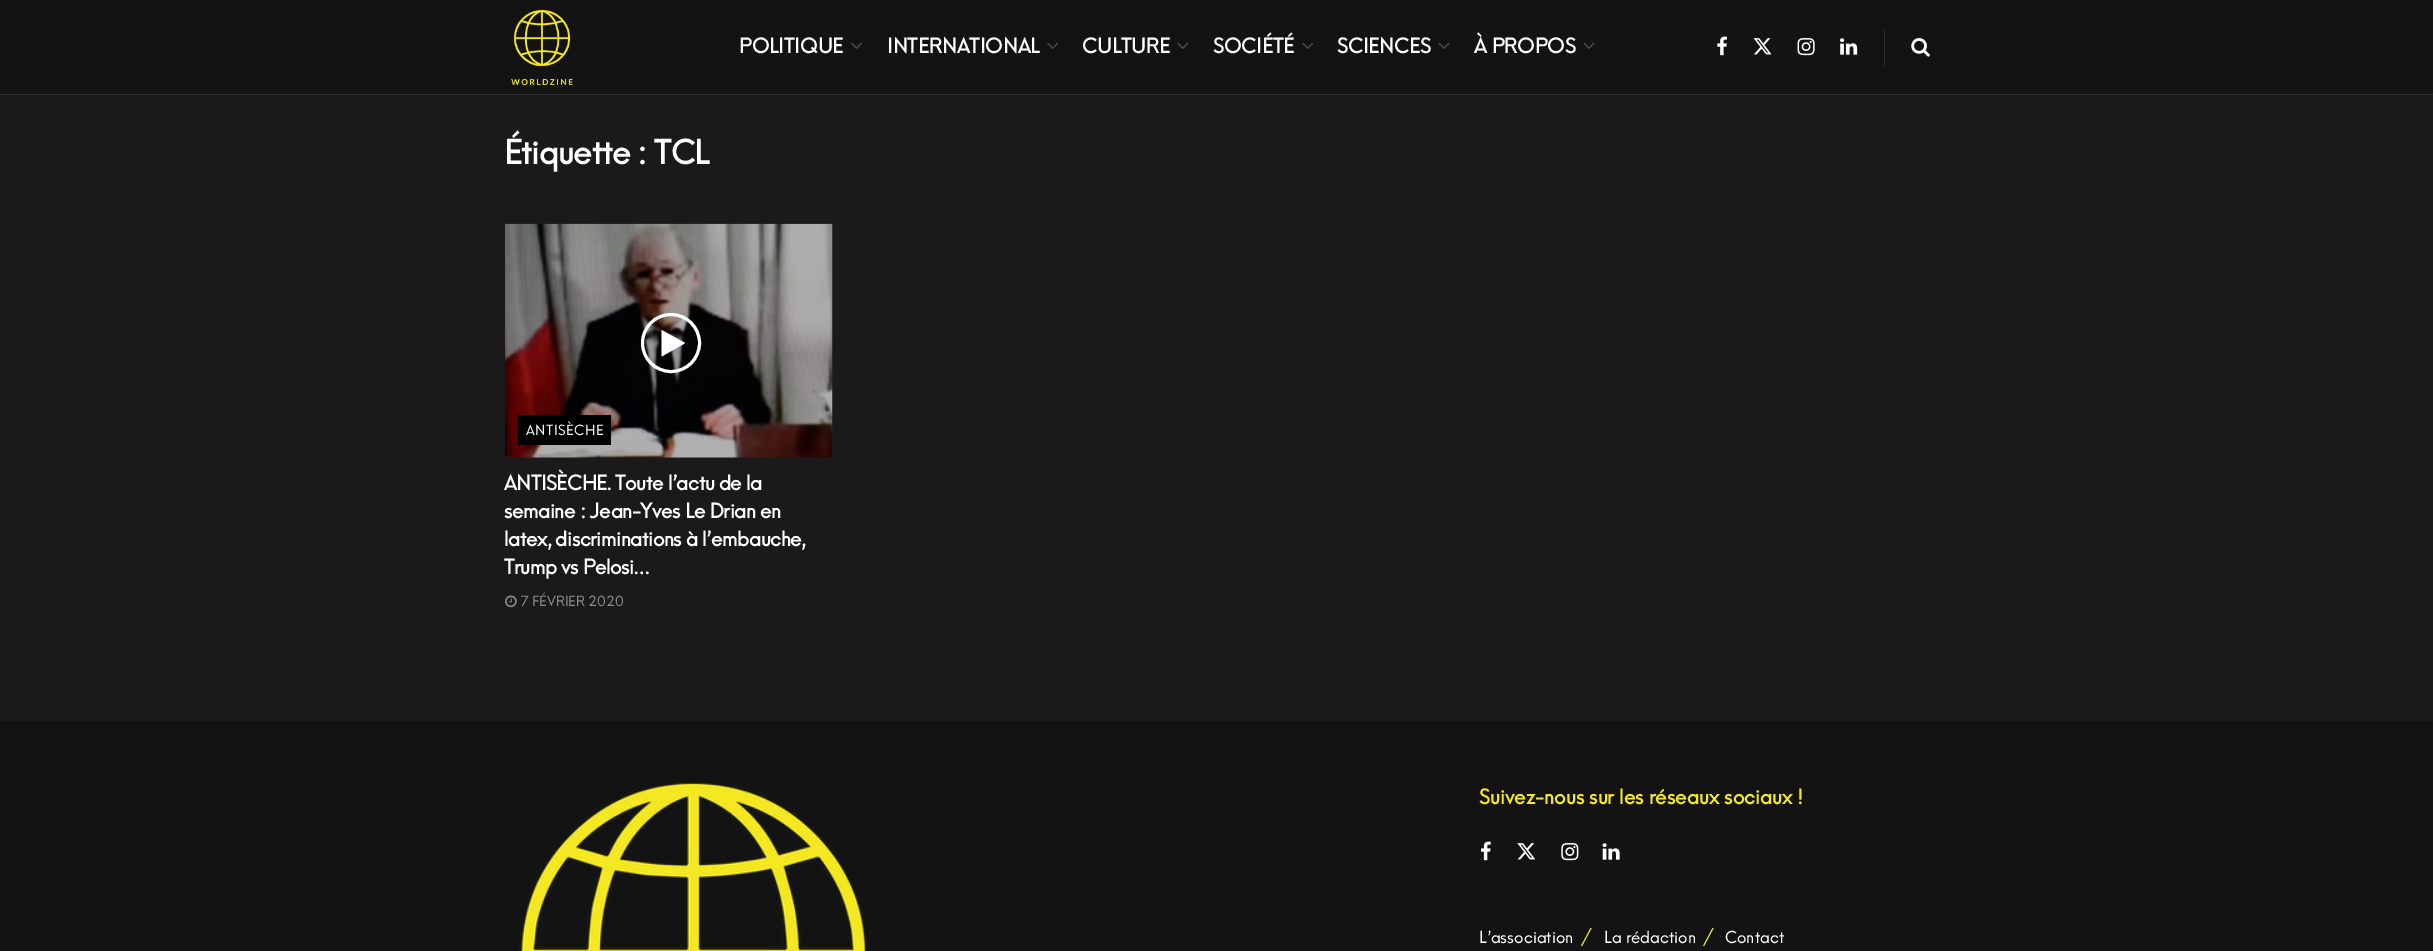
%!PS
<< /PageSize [2433 951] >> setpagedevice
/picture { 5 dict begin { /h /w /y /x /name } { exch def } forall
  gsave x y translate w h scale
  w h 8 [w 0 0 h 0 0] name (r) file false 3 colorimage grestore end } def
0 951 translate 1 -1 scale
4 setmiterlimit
0.102 setgray
0 0 2433 951 rectfill
0.075 setgray
0 0 2433 94 rectfill
0.188 setgray
0 94 2433 1 rectfill
(img1.rgb) 511 10 62 75 picture
/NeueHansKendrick-Bold [20 0 0 -20 0 0] selectfont
1 setgray
739 53 moveto (POLITIQUE) show
(img2.rgb) 851 42 11 7 picture
887 53 moveto (INTERNATIONAL) show
(img3.rgb) 1047 42 12 7 picture
1082 53 moveto (CULTURE) show
(img3.rgb) 1177 42 12 7 picture
1213 53 moveto (SOCIÉTÉ) show
(img3.rgb) 1302 42 12 7 picture
1337 53 moveto (SCIENCES) show
(img4.rgb) 1438 42 12 7 picture
1474 53 moveto (À PROPOS) show
(img4.rgb) 1583 42 12 7 picture
(img5.rgb) 1717 36 10 20 picture
(img6.rgb) 1753 38 19 17 picture
(img7.rgb) 1797 38 18 18 picture
(img8.rgb) 1840 38 18 17 picture
0.188 setgray
1884 29 1 37 rectfill
(img9.rgb) 1911 38 19 19 picture
/NeueHansKendrick-Bold [32.5 0 0 -32.5 0 0] selectfont
1 setgray
504 164 moveto -0.6 0 (Étiquette : TCL) ashow
(img10.rgb) 505 223 328 235 picture
3 setlinewidth
newpath 671 343 28.5 0 360 arc closepath stroke
newpath 684.5 343.5 moveto 666 354 lineto 665.5 354 662 357 661.5 356 curveto 661.5 330.5 lineto 661.5 330 lineto 680.5 340.5 lineto 685 343 lineto closepath fill
0 setgray
518 415 93 30 rectfill
/NeueHansKendrick-Regular [13.75 0 0 -13.75 0 0] selectfont
1 setgray
526 435 moveto 0.5 0 (ANTISÈCHE) ashow
/NeueHansKendrick-Bold [20 0 0 -20 0 0] selectfont
504 490 moveto -0.4 0 (ANTISÈCHE. Toute l’actu de la) ashow
504 518 moveto -0.4 0 (semaine : Jean-Yves Le Drian en) ashow
504 546 moveto -0.4 0 (latex, discriminations à l’embauche,) ashow
504 574 moveto -0.4 0 (Trump vs Pelosi…) ashow
(img11.rgb) 505 595 12 13 picture
/NeueHansKendrick-Regular [13.75 0 0 -13.75 0 0] selectfont
0.545 setgray
520 606 moveto (7 FÉVRIER 2020) show
0.075 setgray
0 721 2433 230 rectfill
(img12.rgb) 519 783 347 168 picture
/NeueHansKendrick-Bold [20 0 0 -20 0 0] selectfont
0.957 0.91 0.137 setrgbcolor
1479 804 moveto (Suivez-nous sur les réseaux sociaux !) show
(img13.rgb) 1481 841 10 20 picture
(img14.rgb) 1517 843 19 17 picture
(img15.rgb) 1561 843 18 18 picture
(img16.rgb) 1602 843 18 17 picture
/NeueHansKendrick-Regular [16.25 0 0 -16.25 0 0] selectfont
1 setgray
1479 943 moveto (L’association) show
/NeueHansKendrick-Regular [18 0 0 -18 0 0] selectfont
0.933 0.933 0.133 setrgbcolor
1581 943 moveto (/) show
/NeueHansKendrick-Regular [16.25 0 0 -16.25 0 0] selectfont
1 setgray
1604 943 moveto (La rédaction) show
/NeueHansKendrick-Regular [18 0 0 -18 0 0] selectfont
0.933 0.933 0.133 setrgbcolor
1703 943 moveto (/) show
/NeueHansKendrick-Regular [16.25 0 0 -16.25 0 0] selectfont
1 setgray
1725 943 moveto (Contact) show
showpage
